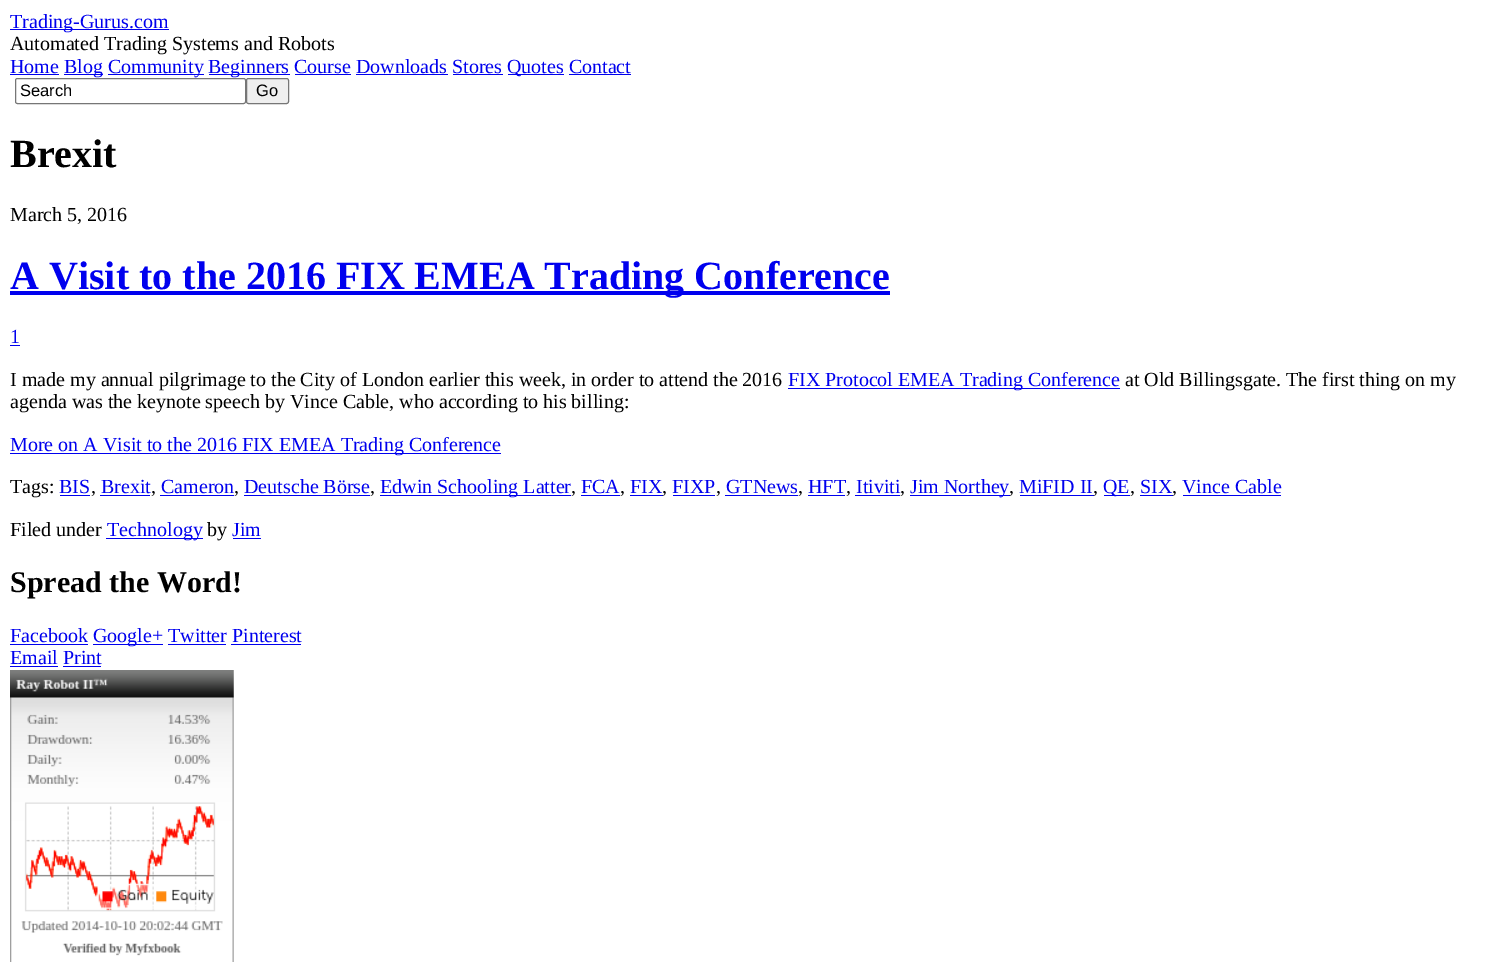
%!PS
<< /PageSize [1501 962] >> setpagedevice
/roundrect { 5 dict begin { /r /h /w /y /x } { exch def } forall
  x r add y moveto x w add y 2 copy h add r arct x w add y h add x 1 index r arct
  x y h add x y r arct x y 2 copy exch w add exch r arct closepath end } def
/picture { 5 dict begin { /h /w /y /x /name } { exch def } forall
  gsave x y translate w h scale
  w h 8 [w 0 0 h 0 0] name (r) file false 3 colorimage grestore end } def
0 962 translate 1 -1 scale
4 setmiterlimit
1 setgray
0 0 1501 962 rectfill
0 0 0.933 setrgbcolor
10 29 159 1 rectfill
/LiberationSerif-Regular [20 0 0 -20 0 0] selectfont
10 28 moveto (Trading-Gurus.com) show
0 setgray
10 50 moveto (Automated Trading Systems and Robots) show
0 0 0.933 setrgbcolor
10 73 moveto (Home) show
10 74 49 1 rectfill
64 74 39 1 rectfill
64 73 moveto (Blog) show
108 74 96 1 rectfill
108 73 moveto (Community) show
209 74 81 1 rectfill
208 73 moveto (Beginners Course Downloads Stores) show
508 74 56 1 rectfill
507 73 moveto (Quotes Contact) show
295 74 56 1 rectfill
356 74 92 1 rectfill
453 74 50 1 rectfill
569 74 62 1 rectfill
0.463 setgray
15.5 78.5 230 25 2 roundrect stroke
/LiberationSans-Regular [16.5 0 0 -16.5 0 0] selectfont
0 setgray
20 96 moveto (Search) show
0.937 setgray
246.5 78.5 42 25 2 roundrect gsave fill grestore
0.463 setgray
stroke
0 setgray
256 96 moveto (Go) show
/LiberationSerif-Bold [40 0 0 -40 0 0] selectfont
10 167 moveto (Brexit) show
/LiberationSerif-Regular [20 0 0 -20 0 0] selectfont
10 221 moveto (March 5, 2016) show
0 0 0.933 setrgbcolor
10 291 880 4 rectfill
/LiberationSerif-Bold [40 0 0 -40 0 0] selectfont
10 289 moveto (A Visit to the 2016 FIX EMEA Trading Conference) show
/LiberationSerif-Regular [20 0 0 -20 0 0] selectfont
10 343 moveto (1) show
10 345 10 1 rectfill
0 setgray
10 386 moveto (I made my annual pilgrimage to the City of London earlier this week, in order to attend the 2016) show
0 0 0.933 setrgbcolor
788 388 332 1 rectfill
788 386 moveto (FIX Protocol EMEA Trading Conference) show
0 setgray
1125 386 moveto (at Old Billingsgate. The first thing on my) show
10 408 moveto (agenda was the keynote speech by Vince Cable, who according to his billing:) show
0 0 0.933 setrgbcolor
10 453 491 1 rectfill
10 451 moveto (More on A Visit to the 2016 FIX EMEA Trading Conference) show
0 setgray
10 493 moveto (Tags:) show
0 0 0.933 setrgbcolor
59 493 moveto (BIS) show
60 495 30 1 rectfill
0 setgray
91 493 moveto (,) show
0 0 0.933 setrgbcolor
101 493 moveto (Brexit) show
100 495 50 1 rectfill
0 setgray
151 493 moveto (,) show
0 0 0.933 setrgbcolor
161 493 moveto (Cameron) show
160 495 74 1 rectfill
0 setgray
234 493 moveto (,) show
0 0 0.933 setrgbcolor
244 493 moveto (Deutsche Börse) show
244 495 126 1 rectfill
0 setgray
370 493 moveto (,) show
0 0 0.933 setrgbcolor
380 495 191 1 rectfill
380 493 moveto (Edwin Schooling Latter) show
0 setgray
571 493 moveto (,) show
0 0 0.933 setrgbcolor
581 493 moveto (FCA) show
581 495 39 1 rectfill
0 setgray
620 493 moveto (,) show
0 0 0.933 setrgbcolor
630 493 moveto (FIX) show
630 495 33 1 rectfill
0 setgray
662 493 moveto (,) show
0 0 0.933 setrgbcolor
672 493 moveto (FIXP) show
673 495 42 1 rectfill
0 setgray
716 493 moveto (,) show
0 0 0.933 setrgbcolor
726 493 moveto (GTNews) show
725 495 73 1 rectfill
0 setgray
798 493 moveto (,) show
0 0 0.933 setrgbcolor
808 493 moveto (HFT) show
808 495 37 1 rectfill
0 setgray
846 493 moveto (,) show
0 0 0.933 setrgbcolor
856 493 moveto (Itiviti) show
855 495 45 1 rectfill
0 setgray
900 493 moveto (,) show
0 0 0.933 setrgbcolor
910 495 100 1 rectfill
910 493 moveto (Jim Northey) show
0 setgray
1009 493 moveto (,) show
0 0 0.933 setrgbcolor
1019 493 moveto (MiFID II) show
1020 495 74 1 rectfill
0 setgray
1093 493 moveto (,) show
0 0 0.933 setrgbcolor
1104 495 26 1 rectfill
1103 493 moveto (QE) show
0 setgray
1130 493 moveto (,) show
0 0 0.933 setrgbcolor
1140 493 moveto (SIX) show
1140 495 33 1 rectfill
0 setgray
1172 493 moveto (,) show
0 0 0.933 setrgbcolor
1182 493 moveto (Vince Cable) show
1183 495 98 1 rectfill
0 setgray
10 536 moveto (Filed under) show
0 0 0.933 setrgbcolor
106 538 97 1 rectfill
107 536 moveto (Technology) show
0 setgray
207 536 moveto (by) show
0 0 0.933 setrgbcolor
232 536 moveto (Jim) show
233 538 28 1 rectfill
/LiberationSerif-Bold [30 0 0 -30 0 0] selectfont
0 setgray
10 592 moveto (Spread the Word!) show
/LiberationSerif-Regular [20 0 0 -20 0 0] selectfont
0 0 0.933 setrgbcolor
10 642 moveto (Facebook) show
10 644 78 1 rectfill
93 644 70 1 rectfill
93 642 moveto (Google+ Twitter Pinterest) show
168 644 58 1 rectfill
231 644 70 1 rectfill
10 664 moveto (Email Print) show
10 666 48 1 rectfill
63 666 38 1 rectfill
(img1.rgb) 10 670 224 292 picture
showpage
